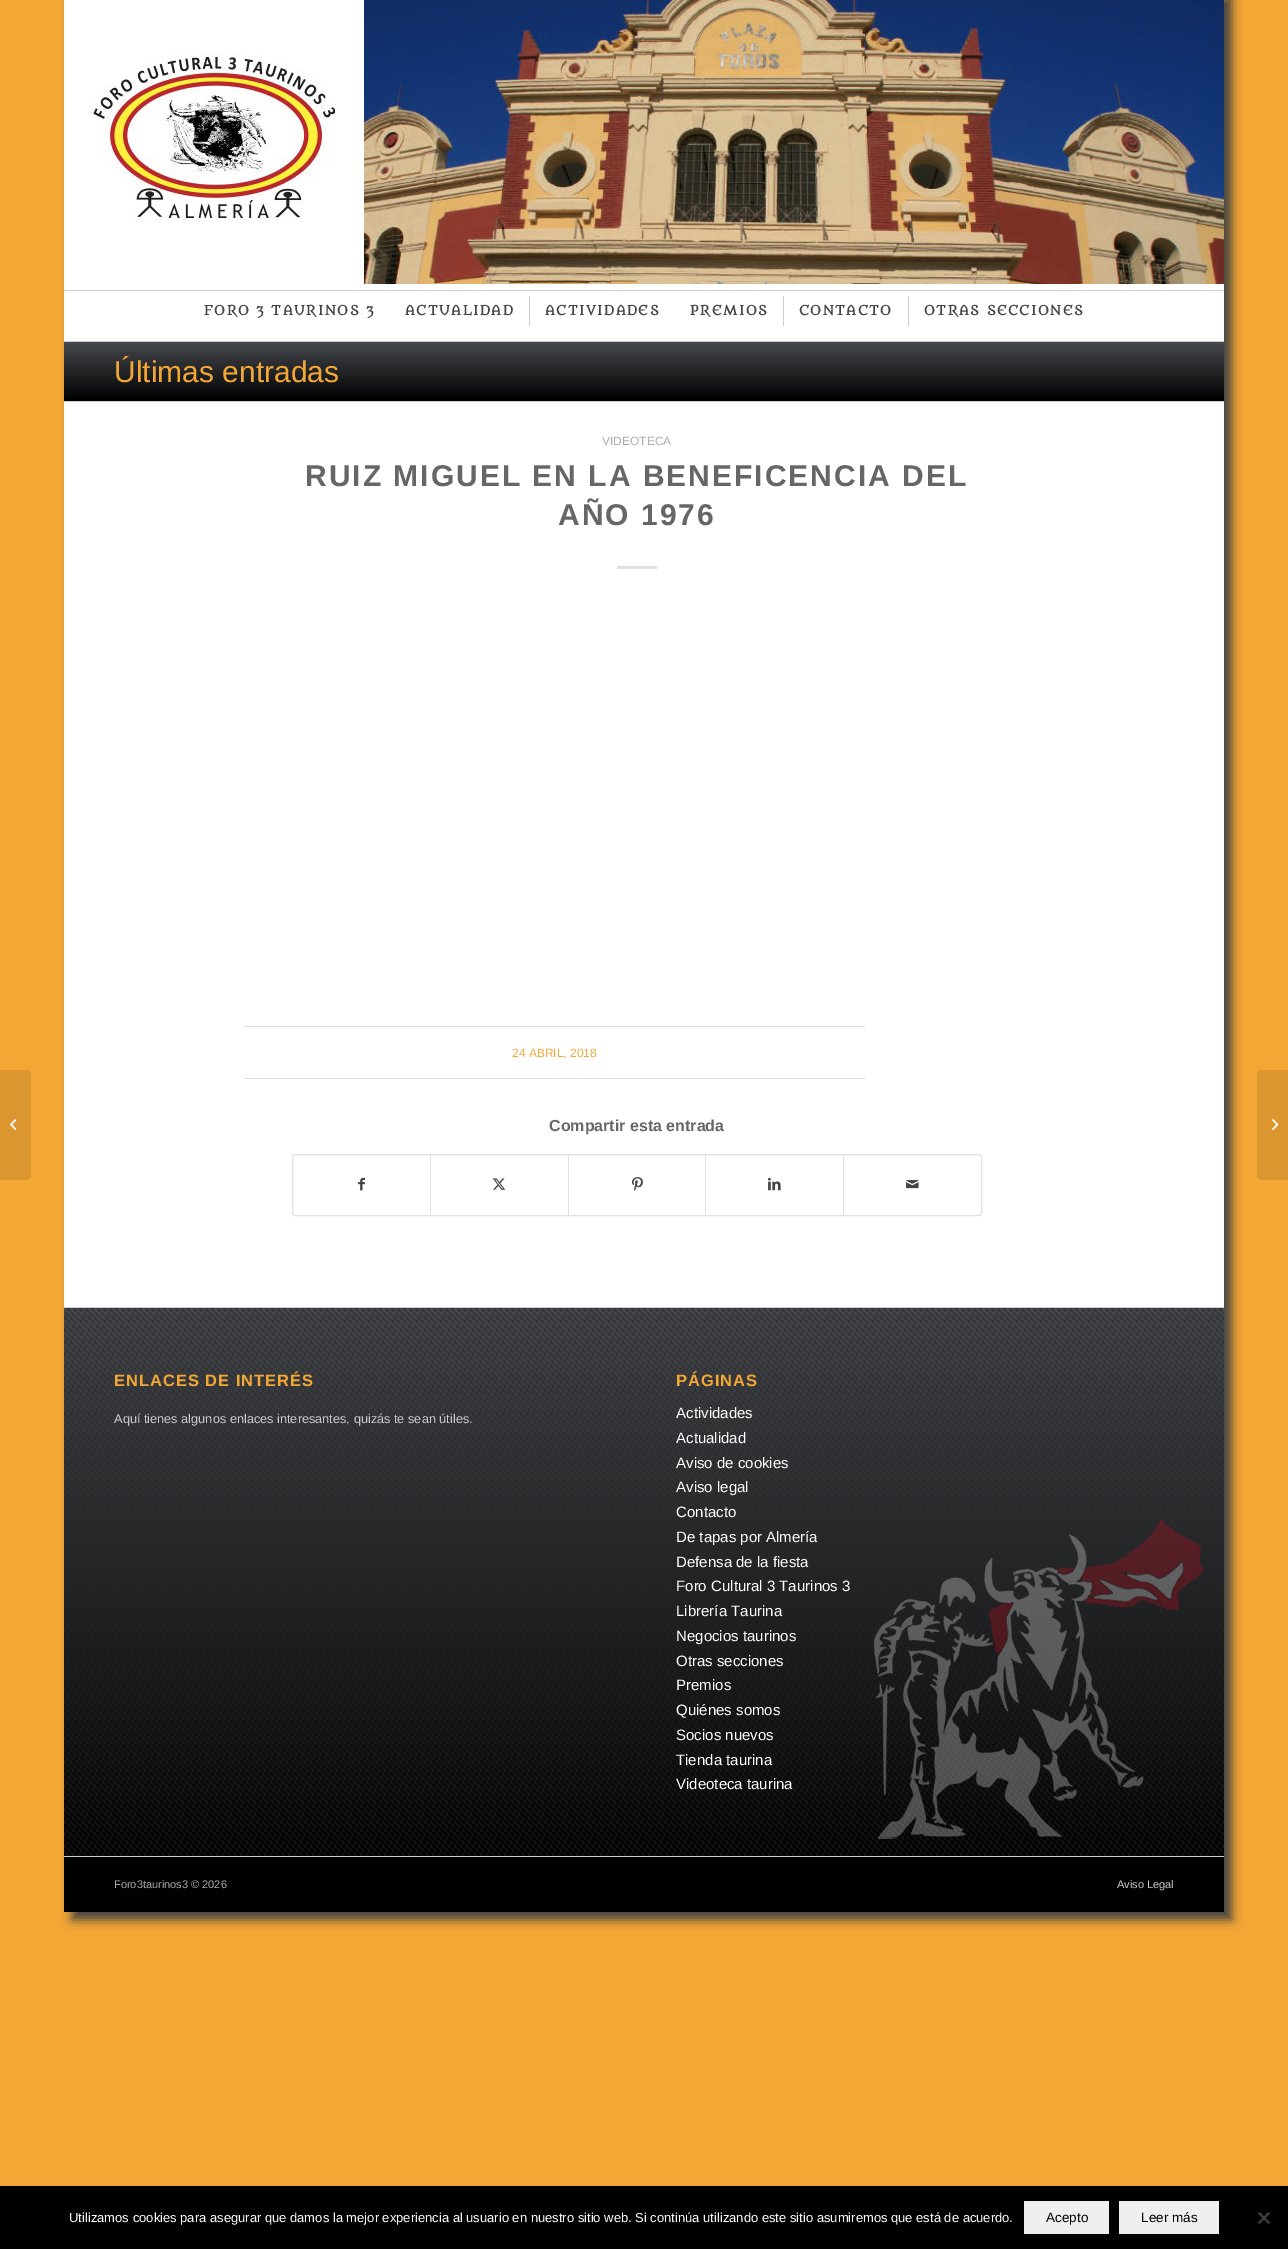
%!PS
<< /PageSize [1288 2249] /PageUsesTransparency true >> setpagedevice
/alpha { dup .setfillconstantalpha .setstrokeconstantalpha } def
/roundrect { 5 dict begin { /r /h /w /y /x } { exch def } forall
  x r add y moveto x w add y 2 copy h add r arct x w add y h add x 1 index r arct
  x y h add x y r arct x y 2 copy exch w add exch r arct closepath end } def
/shadow { 12 dict begin { /a /b /q /h /w /y /x } { exch def } forall gsave /was 0 def
  9 -2 -9 { dup b mul 4 div /e exch def 1 sub .425 mul 2.718 exch exp 1 add a .99 .min exch div /now exch def
    1 1 now sub 1 was sub div sub alpha /was now def
    w h .min e 2 mul add 0 gt { x e sub y e sub w e 2 mul add h e 2 mul add
      q e add b .6 mul add w h .min 2 div e add .min 0 .max roundrect fill } if } for grestore end } def
/picture { 5 dict begin { /h /w /y /x /name } { exch def } forall
  gsave x y translate w h scale
  w h 8 [w 0 0 h 0 0] name (r) file false 3 colorimage grestore end } def
0 .pushpdf14devicefilter
0 2249 translate 1 -1 scale
4 setmiterlimit
0.957 0.655 0.208 setrgbcolor
0 0 1288 2249 rectfill
0.267 setgray
72 -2 1160 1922 0 5 1 shadow
1 setgray
64 0 1160 341 rectfill
(img1.rgb) 89 0 275 284 picture
(img2.rgb) 364 0 860 284 picture
0.8 setgray
64 290 1160 1 rectfill
/Metamorphous-Bold [13 0 0 -13 0 0] selectfont
0.267 setgray
204 315 moveto 1.6 0 (FORO 3 TAURINOS 3) ashow
0.8 setgray
529 296 1 30 rectfill
0.267 setgray
405 315 moveto 1.6 0 (ACTUALIDAD) ashow
545 315 moveto 1.6 0 (ACTIVIDADES) ashow
0.8 setgray
783 296 1 30 rectfill
0.267 setgray
690 315 moveto 1.6 0 (PREMIOS) ashow
0.8 setgray
908 296 1 30 rectfill
0.267 setgray
799 315 moveto 1.6 0 (CONTACTO) ashow
924 315 moveto 1.6 0 (OTRAS SECCIONES) ashow
0.863 0.588 0.188 setrgbcolor
newpath 0 1070 moveto 27 1070 lineto 29 1070 31 1072 31 1074 curveto 31 1176 lineto 31 1178 29 1180 27 1180 curveto 0 1180 lineto closepath fill
(img3.rgb) 10 1119 7 12 picture
1 setgray
64 402 1160 905 rectfill
0.8 setgray
64 341 1160 1 rectfill
gsave newpath 64 342 moveto 1224 342 lineto 1224 401 lineto 64 401 lineto closepath clip newpath
<< /ShadingType 2 /ColorSpace /DeviceRGB /Coords [644 342 644 401] /Extend [true true] /Function << /FunctionType 2 /Domain [0 1] /C0 [0.271 0.282 0.302] /C1 [0 0 0] /N 1 >> >> shfill grestore
/LiberationSans-Regular [30 0 0 -30 0 0] selectfont
0.957 0.655 0.208 setrgbcolor
114 382 moveto (Últimas entradas) show
0.8 setgray
64 401 1160 1 rectfill
/LiberationSans-Regular [12 0 0 -12 0 0] selectfont
0.675 setgray
602 445 moveto (VIDEOTECA) show
/LiberationSans-Bold [30 0 0 -30 0 0] selectfont
0.4 setgray
305 486 moveto 2 0 (RUIZ MIGUEL EN LA BENEFICENCIA DEL) ashow
558 525 moveto 2 0 (AÑO 1976) ashow
0.882 setgray
617 566 40 3 rectfill
244 1026 621 1 rectfill
244 1078 621 1 rectfill
/LiberationSans-Regular [12 0 0 -12 0 0] selectfont
0.957 0.655 0.208 setrgbcolor
512 1057 moveto (24 ABRIL, 2018) show
/LiberationSans-Bold [16 0 0 -16 0 0] selectfont
0.4 setgray
549 1131 moveto (Compartir esta entrada) show
0.882 setgray
292.5 1154.5 689 61 2.5 roundrect stroke
(img4.rgb) 358 1177 7 14 picture
430 1155 1 60 rectfill
(img5.rgb) 492 1178 14 12 picture
568 1155 1 60 rectfill
(img6.rgb) 632 1177 11 14 picture
705 1155 1 60 rectfill
(img7.rgb) 768 1177 13 14 picture
843 1155 1 60 rectfill
(img8.rgb) 906 1180 13 9 picture
(img9.rgb) 64 1308 1160 548 picture
0.8 setgray
64 1307 1160 1 rectfill
/LiberationSans-Bold [16.5 0 0 -16.5 0 0] selectfont
0.957 0.655 0.208 setrgbcolor
114 1386 moveto 1 0 (ENLACES DE INTERÉS) ashow
/LiberationSans-Regular [12.75 0 0 -12.75 0 0] selectfont
0.8 setgray
114 1423 moveto (Aquí tienes algunos enlaces interesantes, quizás te sean útiles.) show
/LiberationSans-Bold [16.5 0 0 -16.5 0 0] selectfont
0.957 0.655 0.208 setrgbcolor
676 1386 moveto 1 0 (PÁGINAS) ashow
/LiberationSans-Regular [15 0 0 -15 0 0] selectfont
1 setgray
676 1418 moveto (Actividades) show
676 1443 moveto (Actualidad) show
676 1468 moveto (Aviso de cookies) show
676 1492 moveto (Aviso legal) show
676 1517 moveto (Contacto) show
676 1542 moveto (De tapas por Almería) show
676 1567 moveto (Defensa de la fiesta) show
676 1591 moveto (Foro Cultural 3 Taurinos 3) show
676 1616 moveto (Librería Taurina) show
676 1641 moveto (Negocios taurinos) show
676 1666 moveto (Otras secciones) show
676 1690 moveto (Premios) show
676 1715 moveto (Quiénes somos) show
676 1740 moveto (Socios nuevos) show
676 1765 moveto (Tienda taurina) show
676 1789 moveto (Videoteca taurina) show
0 setgray
64 1857 1160 55 rectfill
0.8 setgray
64 1856 1160 1 rectfill
/LiberationSans-Regular [11 0 0 -11 0 0] selectfont
0.675 setgray
114 1888 moveto (Foro3taurinos3 © 2026) show
0.8 setgray
1117 1888 moveto (Aviso Legal) show
0.863 0.588 0.188 setrgbcolor
newpath 1261 1070 moveto 1288 1070 lineto 1288 1180 lineto 1261 1180 lineto 1259 1180 1257 1178 1257 1176 curveto 1257 1074 lineto 1257 1072 1259 1070 1261 1070 curveto closepath fill
(img10.rgb) 1272 1119 7 12 picture
0 setgray
0 2186 1288 63 rectfill
/LiberationSans-Regular [13 0 0 -13 0 0] selectfont
1 setgray
69 2222 moveto (Utilizamos cookies para asegurar que damos la mejor experiencia al usuario en nuestro sitio web. Si continúa utilizando este sitio asumiremos que está de acuerdo.) show
0.937 setgray
1024 2201 85 33 rectfill
/LiberationSans-Regular [13.5 0 0 -13.5 0 0] selectfont
0 setgray
1046 2222 moveto (Acepto) show
0.937 setgray
1119 2201 100 33 rectfill
0 setgray
1141 2222 moveto (Leer más) show
0.251 setgray
newpath 1268.5 2212 moveto 1270 2213.5 lineto 1259.5 2224 lineto 1258 2222.5 lineto closepath fill
newpath 1258 2213.5 moveto 1259.5 2212 lineto 1270 2222.5 lineto 1268.5 2224 lineto closepath fill
.poppdf14devicefilter showpage
